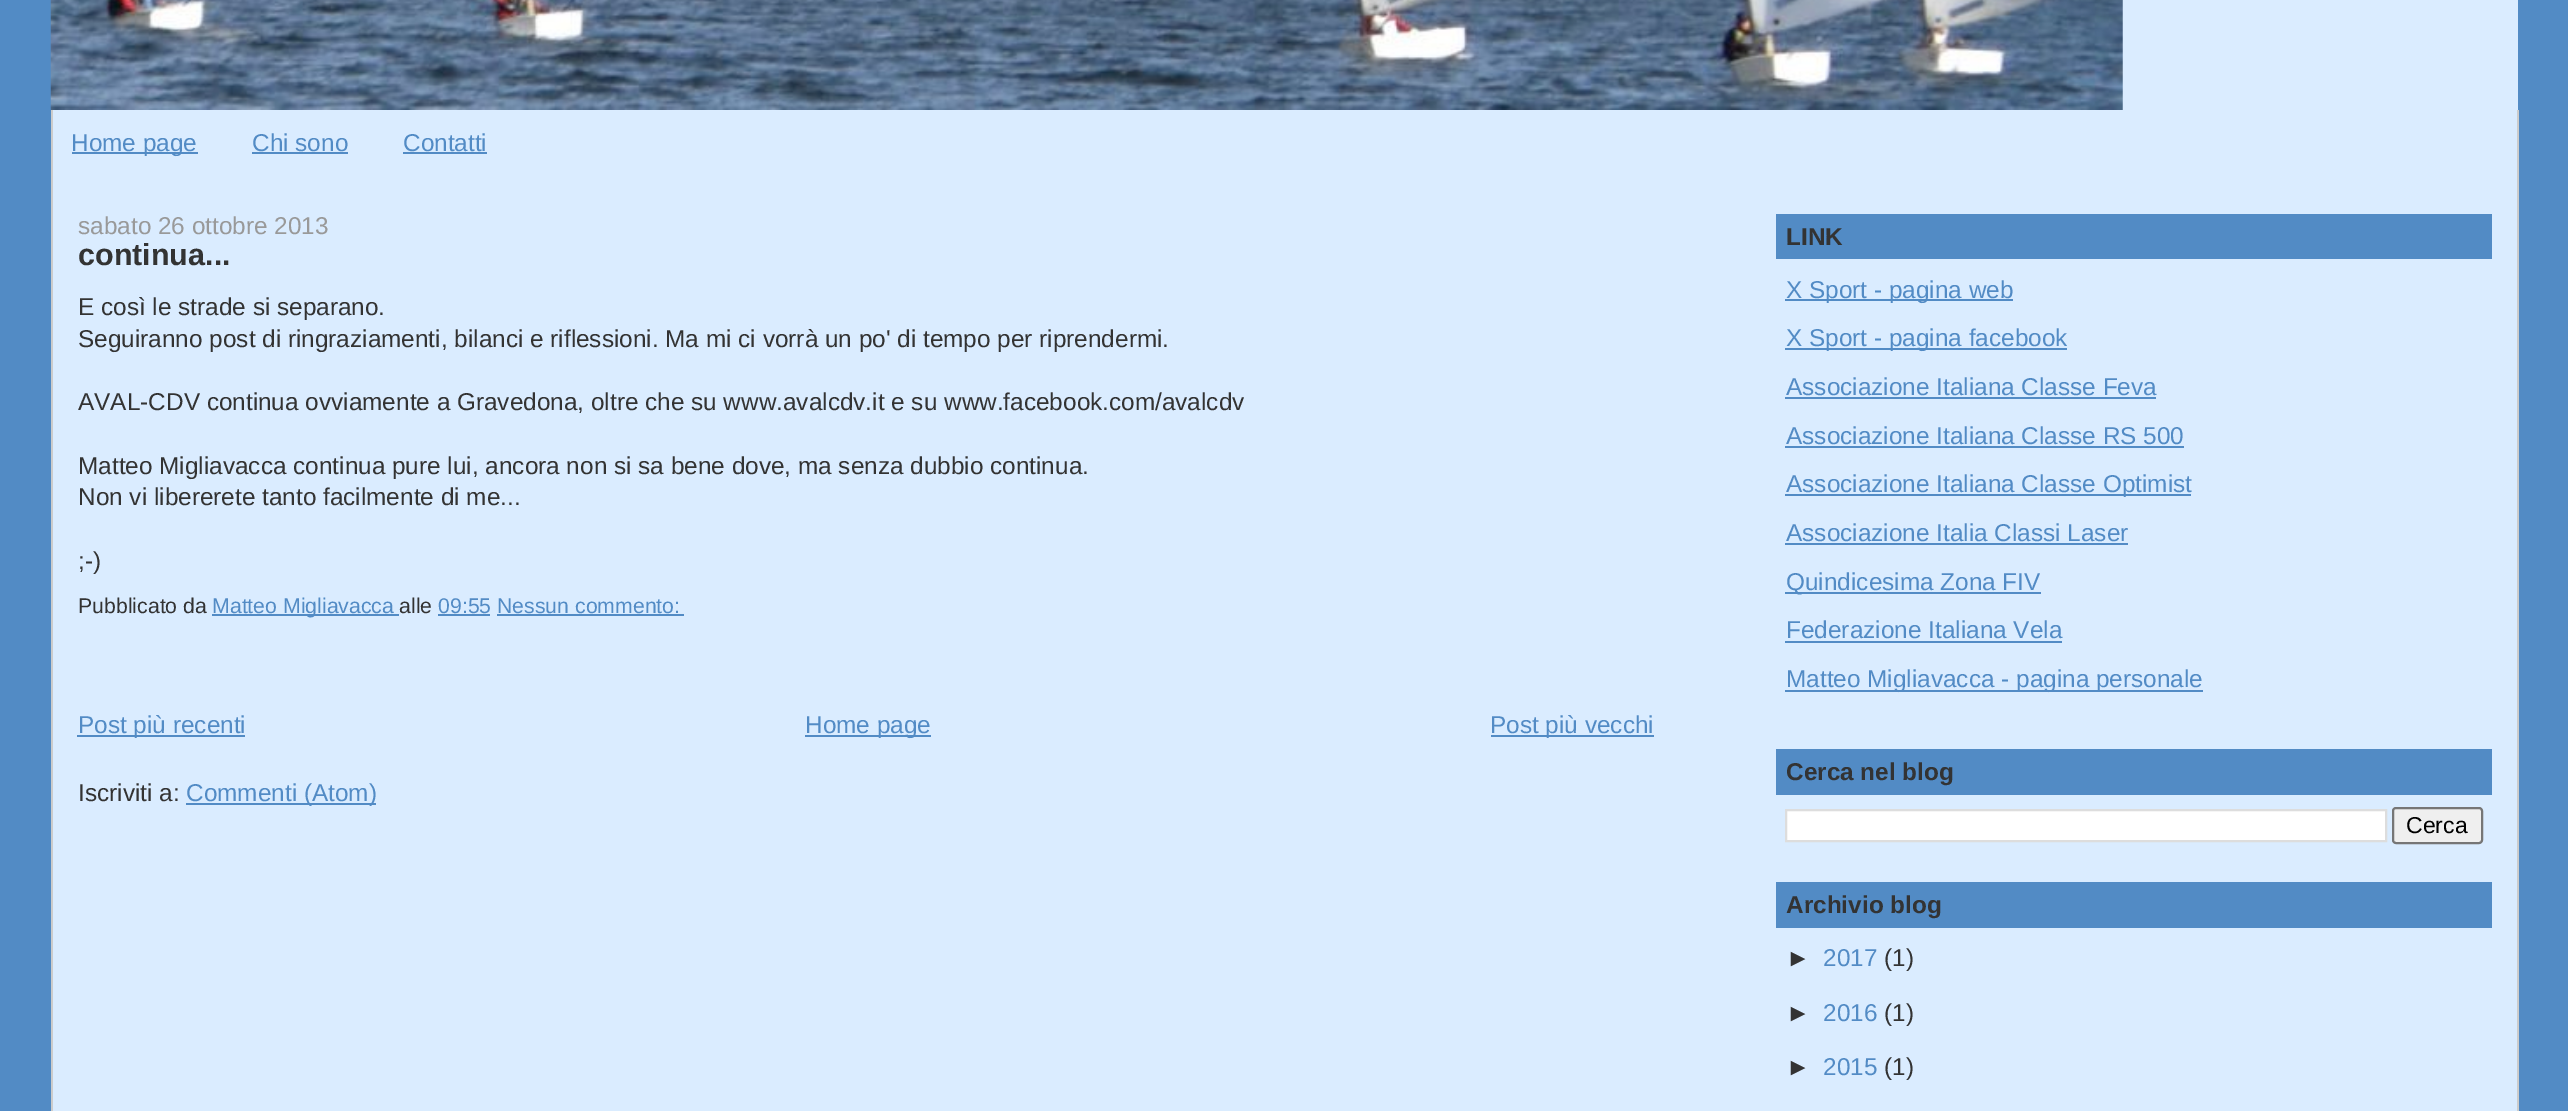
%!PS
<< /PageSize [2568 1111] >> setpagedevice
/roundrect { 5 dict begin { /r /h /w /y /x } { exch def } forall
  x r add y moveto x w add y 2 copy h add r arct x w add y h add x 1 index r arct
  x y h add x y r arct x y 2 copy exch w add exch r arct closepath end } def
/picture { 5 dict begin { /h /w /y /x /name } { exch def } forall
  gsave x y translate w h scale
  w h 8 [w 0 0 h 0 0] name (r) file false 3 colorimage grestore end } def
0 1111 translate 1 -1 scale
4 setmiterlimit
0.322 0.545 0.773 setrgbcolor
0 0 2568 1111 rectfill
0.855 0.925 1 setrgbcolor
2122 0 396 110 rectfill
(img1.rgb) 50 0 2073 110 picture
53 110 2464 1001 rectfill
0.8 setgray
2517 110 2 1001 rectfill
51 110 2 1001 rectfill
0.322 0.545 0.773 setrgbcolor
72 152 126 2 rectfill
/LiberationSans-Regular [24.35 0 0 -24.35 0 0] selectfont
71 151 moveto (Home page) show
252 151 moveto (Chi sono) show
252 152 96 2 rectfill
403 151 moveto (Contatti) show
403 152 84 2 rectfill
0.6 setgray
78 234 moveto (sabato 26 ottobre 2013) show
/LiberationSans-Bold [30.5 0 0 -30.5 0 0] selectfont
0.2 setgray
78 265 moveto (continua...) show
/LiberationSans-Regular [24.35 0 0 -24.35 0 0] selectfont
78 315 moveto (E così le strade si separano.) show
78 347 moveto (Seguiranno post di ringraziamenti, bilanci e riflessioni. Ma mi ci vorrà un po' di tempo per riprendermi.) show
78 410 moveto (AVAL-CDV continua ovviamente a Gravedona, oltre che su www.avalcdv.it e su www.facebook.com/avalcdv) show
78 474 moveto (Matteo Migliavacca continua pure lui, ancora non si sa bene dove, ma senza dubbio continua.) show
78 505 moveto (Non vi libererete tanto facilmente di me...) show
78 569 moveto (;-\)) show
/LiberationSans-Regular [21.25 0 0 -21.25 0 0] selectfont
78 613 moveto (Pubblicato da) show
0.322 0.545 0.773 setrgbcolor
212 614 187 2 rectfill
212 613 moveto (Matteo Migliavacca) show
0.2 setgray
399 613 moveto (alle) show
0.322 0.545 0.773 setrgbcolor
438 613 moveto (09:55 Nessun commento:) show
438 614 52 2 rectfill
497 614 187 2 rectfill
77 735 168 2 rectfill
/LiberationSans-Regular [24.35 0 0 -24.35 0 0] selectfont
78 733 moveto (Post più recenti) show
805 735 126 2 rectfill
805 733 moveto (Home page) show
1491 735 163 2 rectfill
1490 733 moveto (Post più vecchi) show
0.2 setgray
78 801 moveto (Iscriviti a:) show
0.322 0.545 0.773 setrgbcolor
186 803 190 2 rectfill
186 801 moveto (Commenti \(Atom\)) show
1776 214 716 45 rectfill
/LiberationSans-Bold [24.35 0 0 -24.35 0 0] selectfont
0.2 setgray
1786 245 moveto (LINK) show
0.322 0.545 0.773 setrgbcolor
1785 299 228 2 rectfill
/LiberationSans-Regular [24.35 0 0 -24.35 0 0] selectfont
1786 298 moveto (X Sport - pagina web) show
1785 348 282 2 rectfill
1786 346 moveto (X Sport - pagina facebook) show
1786 395 moveto (Associazione Italiana Classe Feva) show
1785 397 371 2 rectfill
1786 444 moveto (Associazione Italiana Classe RS 500) show
1785 446 399 2 rectfill
1785 494 406 2 rectfill
1786 492 moveto (Associazione Italiana Classe Optimist) show
1786 541 moveto (Associazione Italia Classi Laser) show
1785 543 343 2 rectfill
1785 592 256 2 rectfill
1786 590 moveto (Quindicesima Zona FIV) show
1786 638 moveto (Federazione Italiana Vela) show
1785 641 277 2 rectfill
1785 690 418 2 rectfill
1786 687 moveto (Matteo Migliavacca - pagina personale) show
1776 749 716 46 rectfill
/LiberationSans-Bold [24.35 0 0 -24.35 0 0] selectfont
0.2 setgray
1786 780 moveto (Cerca nel blog) show
1 setgray
newpath 1786 810 moveto 2386 810 lineto 2386 841 lineto 1786 841 lineto closepath gsave fill grestore
0.867 setgray
2 setlinewidth
stroke
0.937 setgray
2393 808 89 35 3 roundrect gsave fill grestore
0.463 setgray
stroke
/LiberationSans-Regular [23 0 0 -23 0 0] selectfont
0 setgray
2406 833 moveto (Cerca) show
0.322 0.545 0.773 setrgbcolor
1776 882 716 46 rectfill
/LiberationSans-Bold [24.35 0 0 -24.35 0 0] selectfont
0.2 setgray
1786 913 moveto (Archivio blog) show
/LiberationSans-Regular [24.35 0 0 -24.35 0 0] selectfont
1786 966 moveto (►) show
0.322 0.545 0.773 setrgbcolor
1823 966 moveto (2017) show
0.2 setgray
1884 966 moveto (\(1\)) show
1786 1021 moveto (►) show
0.322 0.545 0.773 setrgbcolor
1823 1021 moveto (2016) show
0.2 setgray
1884 1021 moveto (\(1\)) show
1786 1075 moveto (►) show
0.322 0.545 0.773 setrgbcolor
1823 1075 moveto (2015) show
0.2 setgray
1884 1075 moveto (\(1\)) show
showpage
